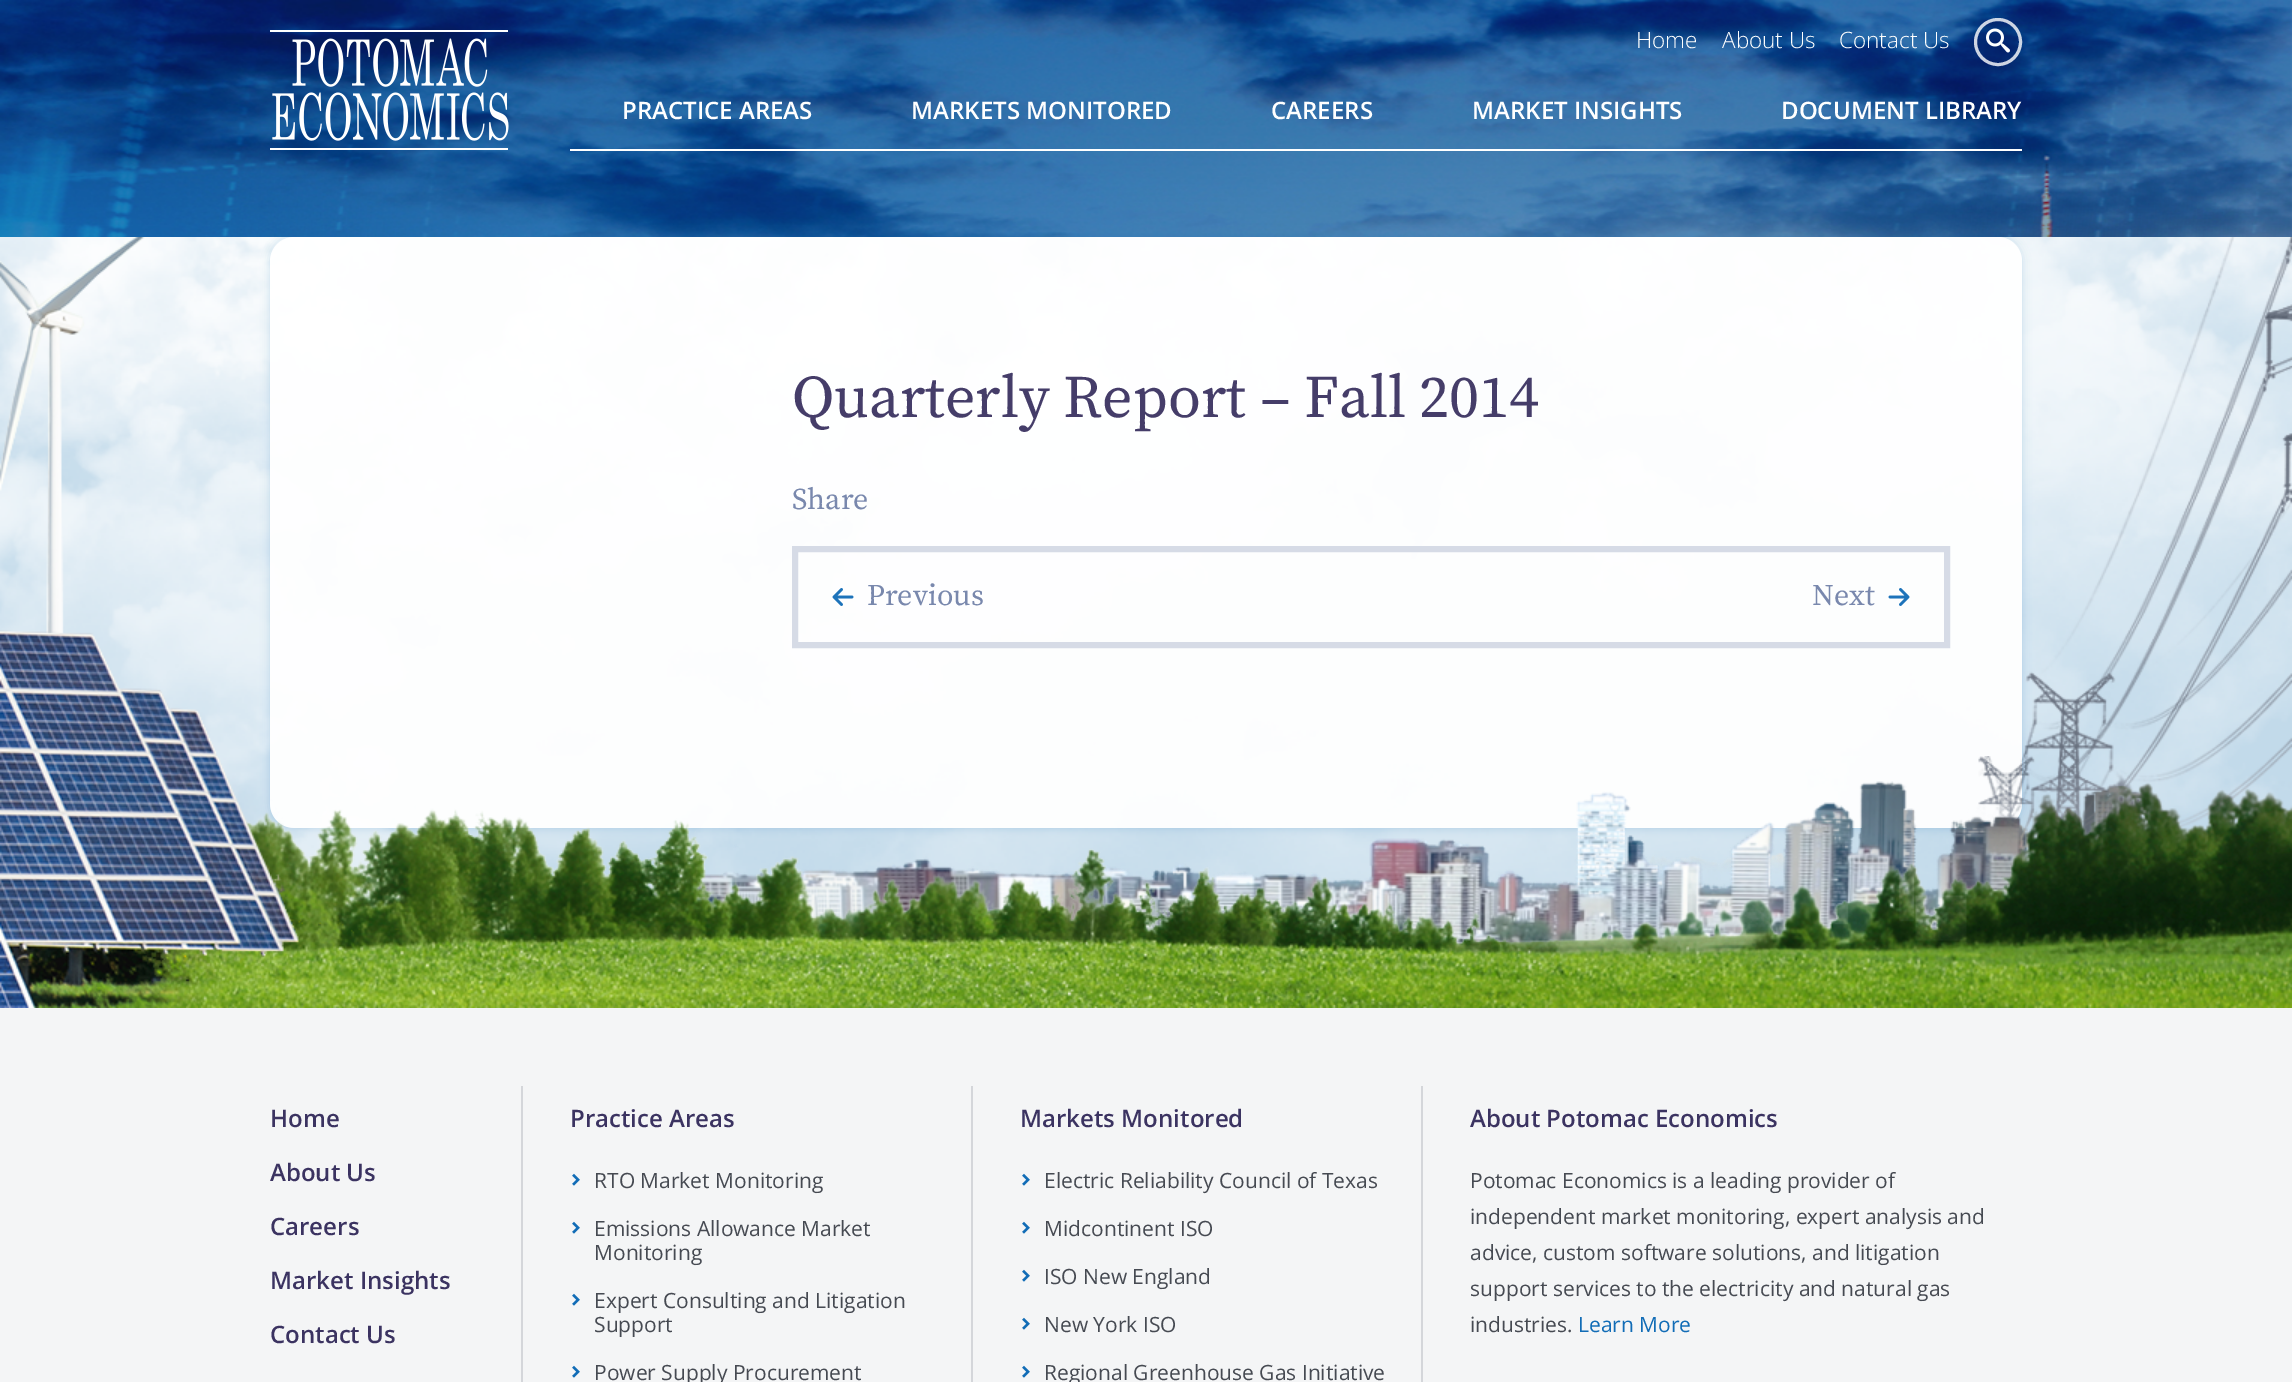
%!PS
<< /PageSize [2292 1382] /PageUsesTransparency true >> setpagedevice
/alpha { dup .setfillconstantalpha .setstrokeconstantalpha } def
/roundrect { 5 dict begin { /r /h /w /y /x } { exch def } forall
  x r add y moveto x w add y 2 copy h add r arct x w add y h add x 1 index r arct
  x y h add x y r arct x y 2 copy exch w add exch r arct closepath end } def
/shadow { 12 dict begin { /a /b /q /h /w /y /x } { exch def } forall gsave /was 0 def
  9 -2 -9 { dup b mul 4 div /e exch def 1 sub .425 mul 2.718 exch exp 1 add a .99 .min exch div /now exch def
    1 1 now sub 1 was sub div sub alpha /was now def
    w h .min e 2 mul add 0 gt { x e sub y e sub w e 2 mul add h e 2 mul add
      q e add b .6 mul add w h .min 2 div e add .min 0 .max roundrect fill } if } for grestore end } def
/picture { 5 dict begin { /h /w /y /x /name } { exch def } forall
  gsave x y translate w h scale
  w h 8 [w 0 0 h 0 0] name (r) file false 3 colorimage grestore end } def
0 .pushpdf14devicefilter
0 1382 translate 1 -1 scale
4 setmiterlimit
1 setgray
0 0 2292 1382 rectfill
(img1.rgb) 0 0 2292 237 picture
(img2.rgb) 270 30 239 120 picture
/OpenSans-Light [22.5 0 0 -22.5 0 0] selectfont
1636 48 moveto (Home) show
1722 48 moveto (About Us) show
1839 48 moveto (Contact Us) show
0.8 alpha
3 setlinewidth
newpath 1998 42 22.5 0 360 arc closepath stroke
1 alpha
(img3.rgb) 1986 28 24 25 picture
570 149 1452 2 rectfill
/OpenSans-SemiBold [24 0 0 -24 0 0] selectfont
622 119 moveto (PRACTICE AREAS) show
911 119 moveto (MARKETS MONITORED) show
1271 119 moveto (CAREERS) show
1472 119 moveto (MARKET INSIGHTS) show
1781 119 moveto (DOCUMENT LIBRARY) show
(img4.rgb) 0 237 2292 771 picture
gsave
newpath 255 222 moveto 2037 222 lineto 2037 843 lineto 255 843 lineto closepath 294 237 moveto 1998 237 lineto 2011.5 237 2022 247.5 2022 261 curveto 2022 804 lineto 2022 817.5 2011.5 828 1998 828 curveto 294 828 lineto 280.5 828 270 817.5 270 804 curveto 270 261 lineto 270 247.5 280.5 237 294 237 curveto closepath eoclip newpath
0.067 0.424 0.714 setrgbcolor
270 237 1752 591 24 4.5 0.21 shadow
grestore
0.95 alpha
270 237 1752 591 24 roundrect fill
/SourceSerifPro-Regular [60 0 0 -60 0 0] selectfont
1 alpha
0.271 0.239 0.412 setrgbcolor
792 417 moveto (Quarterly Report – Fall 2014) show
/SourceSerifPro-Regular [30 0 0 -30 0 0] selectfont
0.475 0.533 0.678 setrgbcolor
792 509 moveto (Share) show
0.839 0.859 0.902 setrgbcolor
6 setlinewidth
795 549 1152 96 rectstroke
(img5.rgb) 832 588 22 18 picture
0.475 0.533 0.678 setrgbcolor
867 605 moveto (Previous) show
1812 605 moveto (Next) show
(img6.rgb) 1888 588 22 18 picture
(img7.rgb) 270 756 1752 245 picture
0.957 0.961 0.965 setrgbcolor
0 1008 2292 374 rectfill
0.831 0.839 0.855 setrgbcolor
521 1086 2 296 rectfill
/OpenSans-SemiBold [24 0 0 -24 0 0] selectfont
0.231 0.2 0.38 setrgbcolor
270 1127 moveto (Home) show
270 1181 moveto (About Us) show
270 1235 moveto (Careers) show
270 1289 moveto (Market Insights) show
270 1343 moveto (Contact Us) show
0.831 0.839 0.855 setrgbcolor
971 1086 2 296 rectfill
0.231 0.2 0.38 setrgbcolor
570 1127 moveto (Practice Areas) show
(img8.rgb) 572 1173 8 13 picture
/OpenSans-Regular [21 0 0 -21 0 0] selectfont
0.275 0.29 0.322 setrgbcolor
594 1188 moveto (RTO Market Monitoring) show
(img8.rgb) 572 1221 8 13 picture
594 1236 moveto (Emissions Allowance Market) show
594 1260 moveto (Monitoring) show
(img8.rgb) 572 1293 8 13 picture
594 1308 moveto (Expert Consulting and Litigation) show
594 1332 moveto (Support) show
(img8.rgb) 572 1365 8 13 picture
594 1380 moveto (Power Supply Procurement) show
0.831 0.839 0.855 setrgbcolor
1421 1086 2 296 rectfill
/OpenSans-SemiBold [24 0 0 -24 0 0] selectfont
0.231 0.2 0.38 setrgbcolor
1020 1127 moveto (Markets Monitored) show
(img8.rgb) 1022 1173 8 13 picture
/OpenSans-Regular [21 0 0 -21 0 0] selectfont
0.275 0.29 0.322 setrgbcolor
1044 1188 moveto (Electric Reliability Council of Texas) show
(img8.rgb) 1022 1221 8 13 picture
1044 1236 moveto (Midcontinent ISO) show
(img8.rgb) 1022 1269 8 13 picture
1044 1284 moveto (ISO New England) show
(img8.rgb) 1022 1317 8 13 picture
1044 1332 moveto (New York ISO) show
(img8.rgb) 1022 1365 8 13 picture
1044 1380 moveto (Regional Greenhouse Gas Initiative) show
/OpenSans-SemiBold [24 0 0 -24 0 0] selectfont
0.231 0.2 0.38 setrgbcolor
1470 1127 moveto (About Potomac Economics) show
/OpenSans-Regular [21 0 0 -21 0 0] selectfont
0.275 0.29 0.322 setrgbcolor
1470 1188 moveto (Potomac Economics is a leading provider of) show
1470 1224 moveto (independent market monitoring, expert analysis and) show
1470 1260 moveto (advice, custom software solutions, and litigation) show
1470 1296 moveto (support services to the electricity and natural gas) show
1470 1332 moveto (industries.) show
0.067 0.424 0.714 setrgbcolor
1578 1332 moveto (Learn More) show
.poppdf14devicefilter showpage
